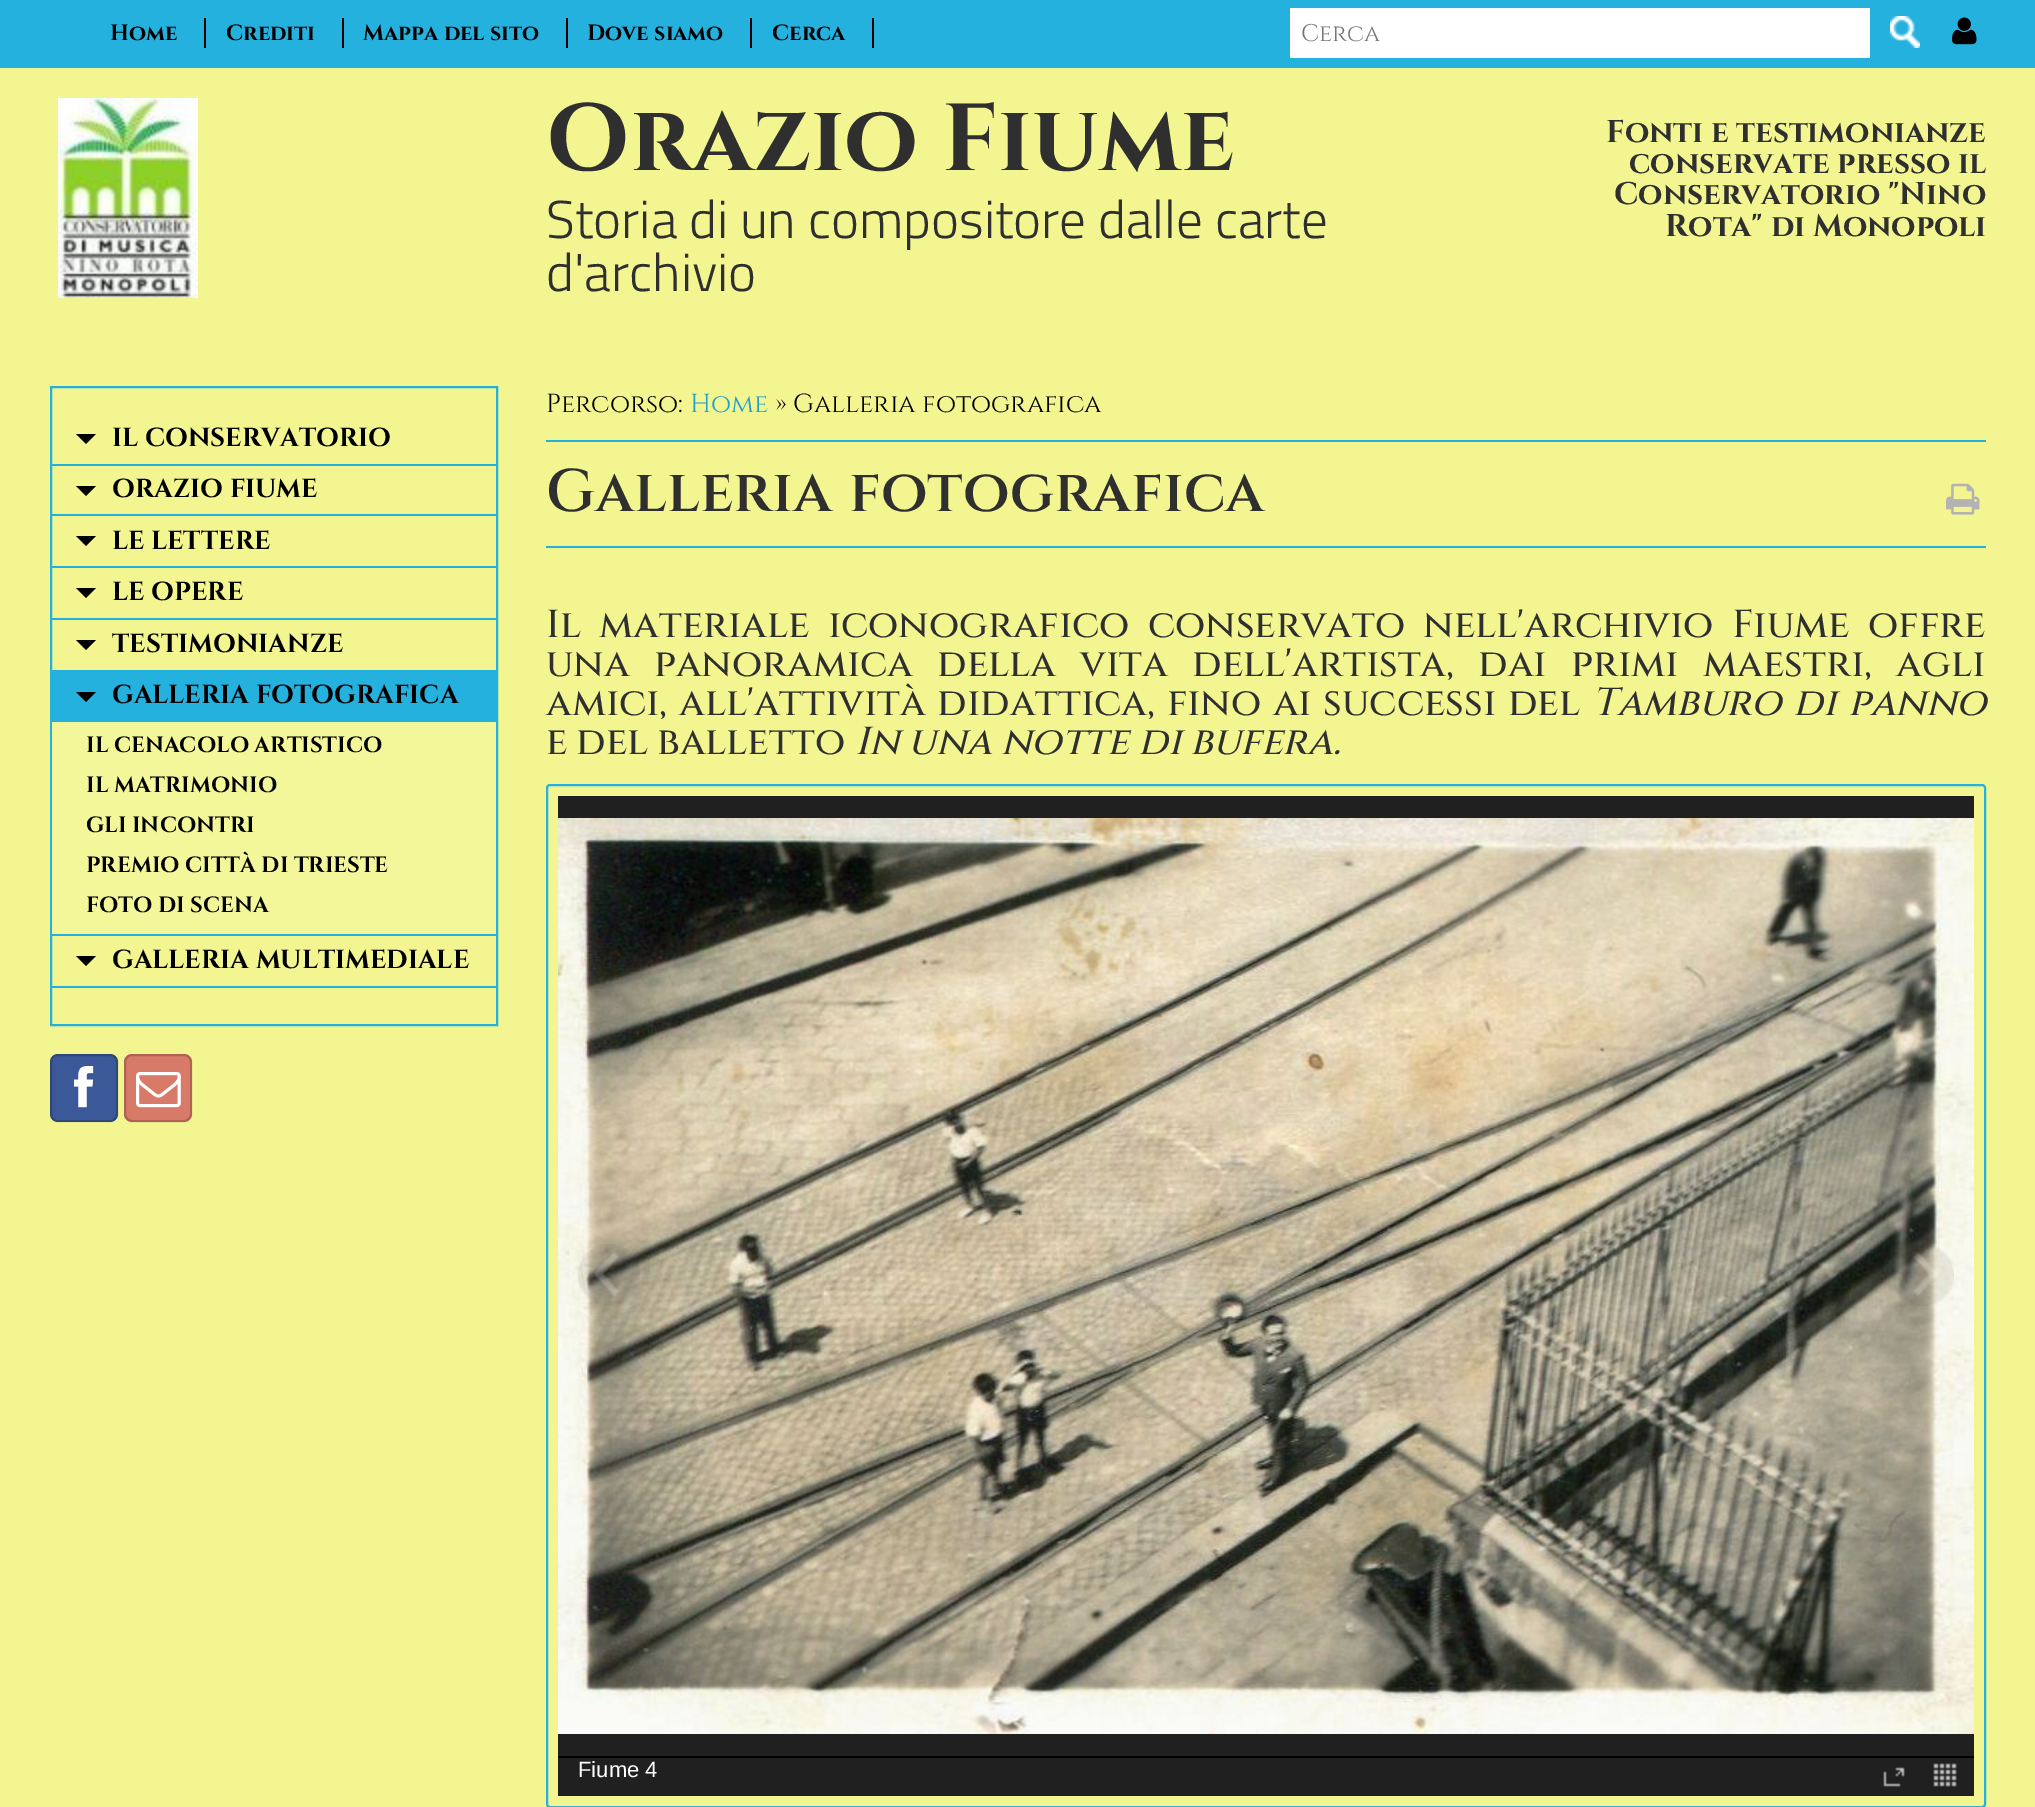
%!PS
<< /PageSize [2035 1807] /PageUsesTransparency true >> setpagedevice
/alpha { dup .setfillconstantalpha .setstrokeconstantalpha } def
/roundrect { 5 dict begin { /r /h /w /y /x } { exch def } forall
  x r add y moveto x w add y 2 copy h add r arct x w add y h add x 1 index r arct
  x y h add x y r arct x y 2 copy exch w add exch r arct closepath end } def
/picture { 5 dict begin { /h /w /y /x /name } { exch def } forall
  gsave x y translate w h scale
  w h 8 [w 0 0 h 0 0] name (r) file false 3 colorimage grestore end } def
0 .pushpdf14devicefilter
0 1807 translate 1 -1 scale
4 setmiterlimit
0.953 0.961 0.569 setrgbcolor
0 0 2035 1807 rectfill
0.141 0.694 0.871 setrgbcolor
0 0 2035 68 rectfill
/Cinzel-Bold [22 0 0 -22 0 0] selectfont
0 setgray
110 40 moveto (Home) show
204 18 2 30 rectfill
226 40 moveto (Crediti) show
342 18 2 30 rectfill
363 40 moveto (Mappa del sito) show
566 18 2 30 rectfill
587 40 moveto (Dove siamo) show
750 18 2 30 rectfill
772 40 moveto (Cerca) show
872 18 2 30 rectfill
1 setgray
1290 8 580 50 rectfill
/Cinzel-Regular [24 0 0 -24 0 0] selectfont
0.459 setgray
1301 41 moveto (Cerca) show
(img1.rgb) 1890 16 30 32 picture
(img2.rgb) 1952 17 25 28 picture
(img3.rgb) 58 98 140 200 picture
/Cinzel-Bold [95 0 0 -95 0 0] selectfont
0.184 setgray
546 170 moveto (Orazio Fiume) show
/TitilliumWeb-Light [53.25 0 0 -53.25 0 0] selectfont
546 238 moveto (Storia di un compositore dalle carte) show
546 291 moveto (d'archivio) show
/Cinzel-Bold [31.25 0 0 -31.25 0 0] selectfont
1606 142 moveto (Fonti e testimonianze) show
1629 173 moveto (conservate presso il) show
1614 204 moveto (Conservatorio "Nino) show
1665 236 moveto (Rota" di Monopoli) show
0.141 0.694 0.871 setrgbcolor
2 setlinewidth
51 387 446 638 rectstroke
52 464 444 2 rectfill
0 setgray
newpath 76 434 moveto 96 434 lineto 86 444 lineto closepath fill
/Cinzel-Bold [26 0 0 -26 0 0] selectfont
112 446 moveto (IL CONSERVATORIO) show
0.141 0.694 0.871 setrgbcolor
52 514 444 2 rectfill
0 setgray
newpath 76 486 moveto 96 486 lineto 86 496 lineto closepath fill
112 497 moveto (ORAZIO FIUME) show
0.141 0.694 0.871 setrgbcolor
52 566 444 2 rectfill
0 setgray
newpath 76 536 moveto 96 536 lineto 86 546 lineto closepath fill
112 549 moveto (LE LETTERE) show
0.141 0.694 0.871 setrgbcolor
52 618 444 2 rectfill
0 setgray
newpath 76 588 moveto 96 588 lineto 86 598 lineto closepath fill
112 600 moveto (LE OPERE) show
0.141 0.694 0.871 setrgbcolor
52 670 444 52 rectfill
0 setgray
newpath 76 640 moveto 96 640 lineto 86 650 lineto closepath fill
112 652 moveto (TESTIMONIANZE) show
newpath 76 692 moveto 96 692 lineto 86 702 lineto closepath fill
112 703 moveto (GALLERIA FOTOGRAFICA) show
0.957 0.965 0.604 setrgbcolor
52 722 444 212 rectfill
0.141 0.694 0.871 setrgbcolor
52 934 444 2 rectfill
/Cinzel-Bold [22 0 0 -22 0 0] selectfont
0 setgray
86 752 moveto (IL CENACOLO ARTISTICO) show
86 792 moveto (IL MATRIMONIO) show
86 832 moveto (GLI INCONTRI) show
86 872 moveto (PREMIO CITTÀ DI TRIESTE) show
86 912 moveto (FOTO DI SCENA) show
0.141 0.694 0.871 setrgbcolor
52 986 444 2 rectfill
0 setgray
newpath 76 956 moveto 96 956 lineto 86 966 lineto closepath fill
/Cinzel-Bold [26 0 0 -26 0 0] selectfont
112 968 moveto (GALLERIA MULTIMEDIALE) show
0.231 0.349 0.596 setrgbcolor
50 1054 68 68 8 roundrect fill
0.2 alpha
0 setgray
51 1055 66 66 7 roundrect stroke
1 alpha
(img4.rgb) 74 1066 20 42 picture
0.847 0.478 0.408 setrgbcolor
124 1054 68 68 8 roundrect fill
0.2 alpha
0 setgray
125 1055 66 66 7 roundrect stroke
1 alpha
(img5.rgb) 136 1072 45 36 picture
/Cinzel-Regular [26 0 0 -26 0 0] selectfont
546 412 moveto (Percorso:) show
0.118 0.631 0.792 setrgbcolor
690 412 moveto (Home) show
0 setgray
775 412 moveto (» Galleria fotografica) show
0.141 0.694 0.871 setrgbcolor
546 440 1440 2 rectfill
546 546 1440 2 rectfill
/Cinzel-SemiBold [60 0 0 -60 0 0] selectfont
0.184 setgray
546 511 moveto 2 0 32 (Galleria fotografica) widthshow
(img6.rgb) 1946 483 34 32 picture
/Cinzel-Medium [39 0 0 -39 0 0] selectfont
546 637 moveto 8.5 0 32 (Il materiale iconografico conservato nell'archivio Fiume offre) widthshow
546 676 moveto 14.75 0 32 (una panoramica della vita dell'artista, dai primi maestri, agli) widthshow
546 715 moveto 2 0 32 (amici, all'attività didattica, fino ai successi del) widthshow
/Cinzel-MediumItalic [39 0 0 -39 0 0] selectfont
1592 715 moveto 2 0 32 (Tamburo di panno) widthshow
/Cinzel-Medium [39 0 0 -39 0 0] selectfont
546 754 moveto -1 0 32 (e del balletto) widthshow
/Cinzel-MediumItalic [39 0 0 -39 0 0] selectfont
855 754 moveto -0.5 0 32 (In una notte di bufera.) widthshow
0.141 0.694 0.871 setrgbcolor
547 785 1438 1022 3 roundrect stroke
0.125 setgray
558 796 1416 960 rectfill
(img7.rgb) 558 818 1416 916 picture
(img8.rgb) 578 1244 62 62 picture
(img9.rgb) 1892 1246 62 60 picture
558 1758 1416 38 rectfill
0 setgray
558 1756 1416 2 rectfill
/LiberationSans-Regular [22 0 0 -22 0 0] selectfont
1 setgray
578 1777 moveto (Fiume 4) show
(img10.rgb) 1883 1767 22 20 picture
(img11.rgb) 1933 1763 24 24 picture
.poppdf14devicefilter showpage
